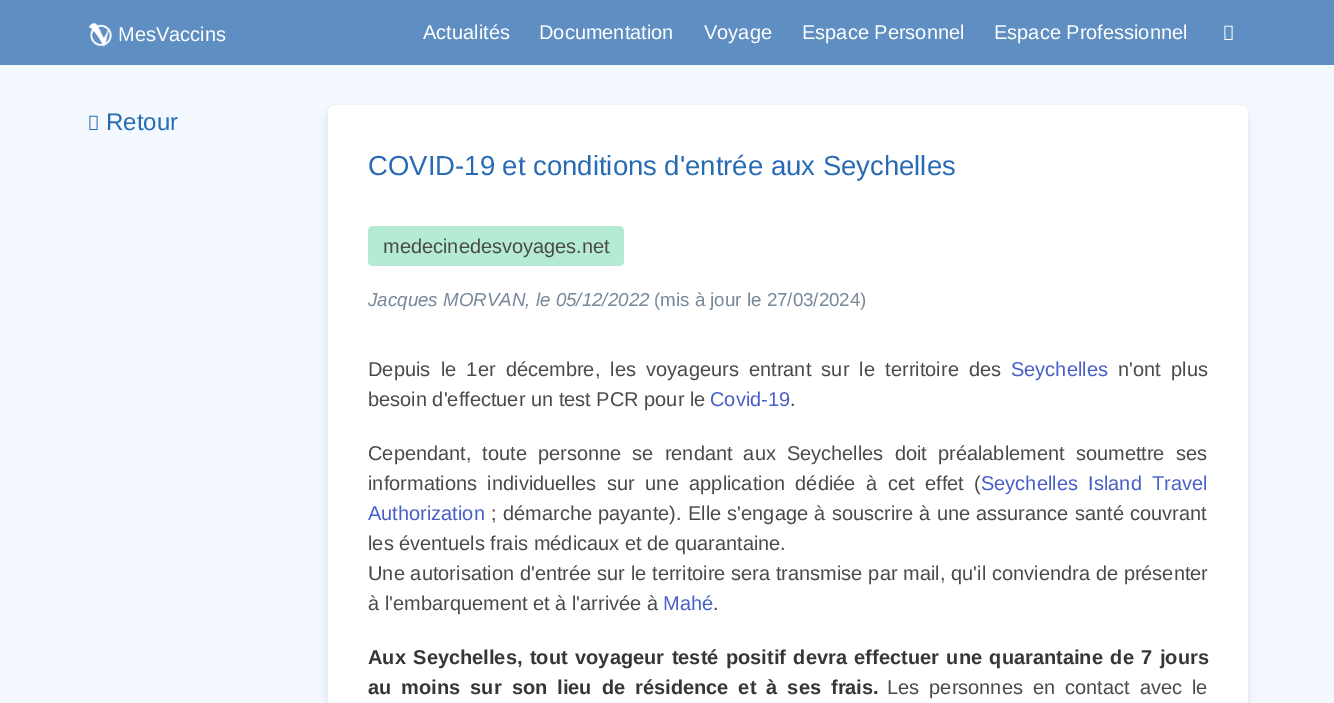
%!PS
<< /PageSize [1334 703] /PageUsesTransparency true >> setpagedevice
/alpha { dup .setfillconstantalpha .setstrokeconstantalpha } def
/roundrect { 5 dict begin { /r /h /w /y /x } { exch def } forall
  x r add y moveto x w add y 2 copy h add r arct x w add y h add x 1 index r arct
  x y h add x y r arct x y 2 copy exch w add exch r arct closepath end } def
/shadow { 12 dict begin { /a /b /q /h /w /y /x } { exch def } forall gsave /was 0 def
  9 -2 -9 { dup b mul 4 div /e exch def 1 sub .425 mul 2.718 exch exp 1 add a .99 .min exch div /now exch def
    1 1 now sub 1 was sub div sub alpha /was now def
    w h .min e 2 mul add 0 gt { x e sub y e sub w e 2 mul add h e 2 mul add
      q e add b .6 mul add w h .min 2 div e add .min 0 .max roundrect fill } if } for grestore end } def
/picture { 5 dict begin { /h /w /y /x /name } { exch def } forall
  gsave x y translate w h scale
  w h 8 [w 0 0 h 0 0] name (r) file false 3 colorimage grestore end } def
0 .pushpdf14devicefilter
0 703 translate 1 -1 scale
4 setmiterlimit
0.953 0.976 1 setrgbcolor
0 0 1334 703 rectfill
0.369 0.557 0.761 setrgbcolor
0 0 1334 65 rectfill
(img1.rgb) 88 22 24 25 picture
/LiberationSans-Regular [20 0 0 -20 0 0] selectfont
1 setgray
118 41 moveto (MesVaccins) show
423 39 moveto (Actualités) show
539 39 moveto (Documentation) show
704 39 moveto (Voyage) show
802 39 moveto (Espace Personnel) show
994 39 moveto (Espace Professionnel) show
(img2.rgb) 1224 25 9 15 picture
(img3.rgb) 89 115 9 15 picture
/LiberationSans-Regular [24 0 0 -24 0 0] selectfont
0.153 0.42 0.71 setrgbcolor
106 130 moveto (Retour) show
0.933 0.957 0.98 setrgbcolor
326.5 104.5 922 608 8.5 roundrect stroke
0.039 setgray
330 115 915 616 5 7.5 0.1 shadow
1 setgray
328 105 920 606 8 roundrect fill
/LiberationSans-Regular [27.5 0 0 -27.5 0 0] selectfont
0.153 0.42 0.71 setrgbcolor
368 175 moveto (COVID-19 et conditions d'entrée aux Seychelles) show
0.714 0.922 0.827 setrgbcolor
368 226 256 40 5 roundrect fill
/LiberationSans-Regular [20 0 0 -20 0 0] selectfont
0.29 setgray
383 253 moveto (medecinedesvoyages.net) show
/LiberationSans-Italic [18.75 0 0 -18.75 0 0] selectfont
0.467 0.533 0.6 setrgbcolor
368 306 moveto (Jacques MORVAN, le 05/12/2022) show
/LiberationSans-Regular [18.75 0 0 -18.75 0 0] selectfont
654 306 moveto (\(mis à jour le 27/03/2024\)) show
/LiberationSans-Regular [20 0 0 -20 0 0] selectfont
0.29 setgray
368 376 moveto 4.75 0 32 (Depuis le 1er décembre, les voyageurs entrant sur le territoire des) widthshow
0.282 0.373 0.78 setrgbcolor
1011 376 moveto (Seychelles) show
0.29 setgray
1118 376 moveto 4.75 0 32 (n'ont plus) widthshow
368 406 moveto (besoin d'effectuer un test PCR pour le) show
0.282 0.373 0.78 setrgbcolor
710 406 moveto (Covid-19) show
0.29 setgray
790 406 moveto (.) show
368 460 moveto 5.5 0 32 (Cependant, toute personne se rendant aux Seychelles doit préalablement soumettre ses) widthshow
368 490 moveto 5 0 32 (informations individuelles sur une application dédiée à cet effet \() widthshow
0.282 0.373 0.78 setrgbcolor
981 490 moveto 5 0 32 (Seychelles Island Travel) widthshow
368 520 moveto (Authorization) show
0.29 setgray
491 520 moveto 0.75 0 32 (; démarche payante\). Elle s'engage à souscrire à une assurance santé couvrant) widthshow
368 550 moveto (les éventuels frais médicaux et de quarantaine.) show
368 580 moveto 0.25 0 32 (Une autorisation d'entrée sur le territoire sera transmise par mail, qu'il conviendra de présenter) widthshow
368 610 moveto (à l'embarquement et à l'arrivée à) show
0.282 0.373 0.78 setrgbcolor
663 610 moveto (Mahé) show
0.29 setgray
713 610 moveto (.) show
/LiberationSans-Bold [20 0 0 -20 0 0] selectfont
0.212 setgray
368 664 moveto 2 0 32 (Aux Seychelles, tout voyageur testé positif devra effectuer une quarantaine de 7 jours) widthshow
368 694 moveto 4.5 0 32 (au moins sur son lieu de résidence et à ses frais.) widthshow
/LiberationSans-Regular [20 0 0 -20 0 0] selectfont
0.29 setgray
887 694 moveto 4.5 0 32 (Les personnes en contact avec le) widthshow
.poppdf14devicefilter showpage
